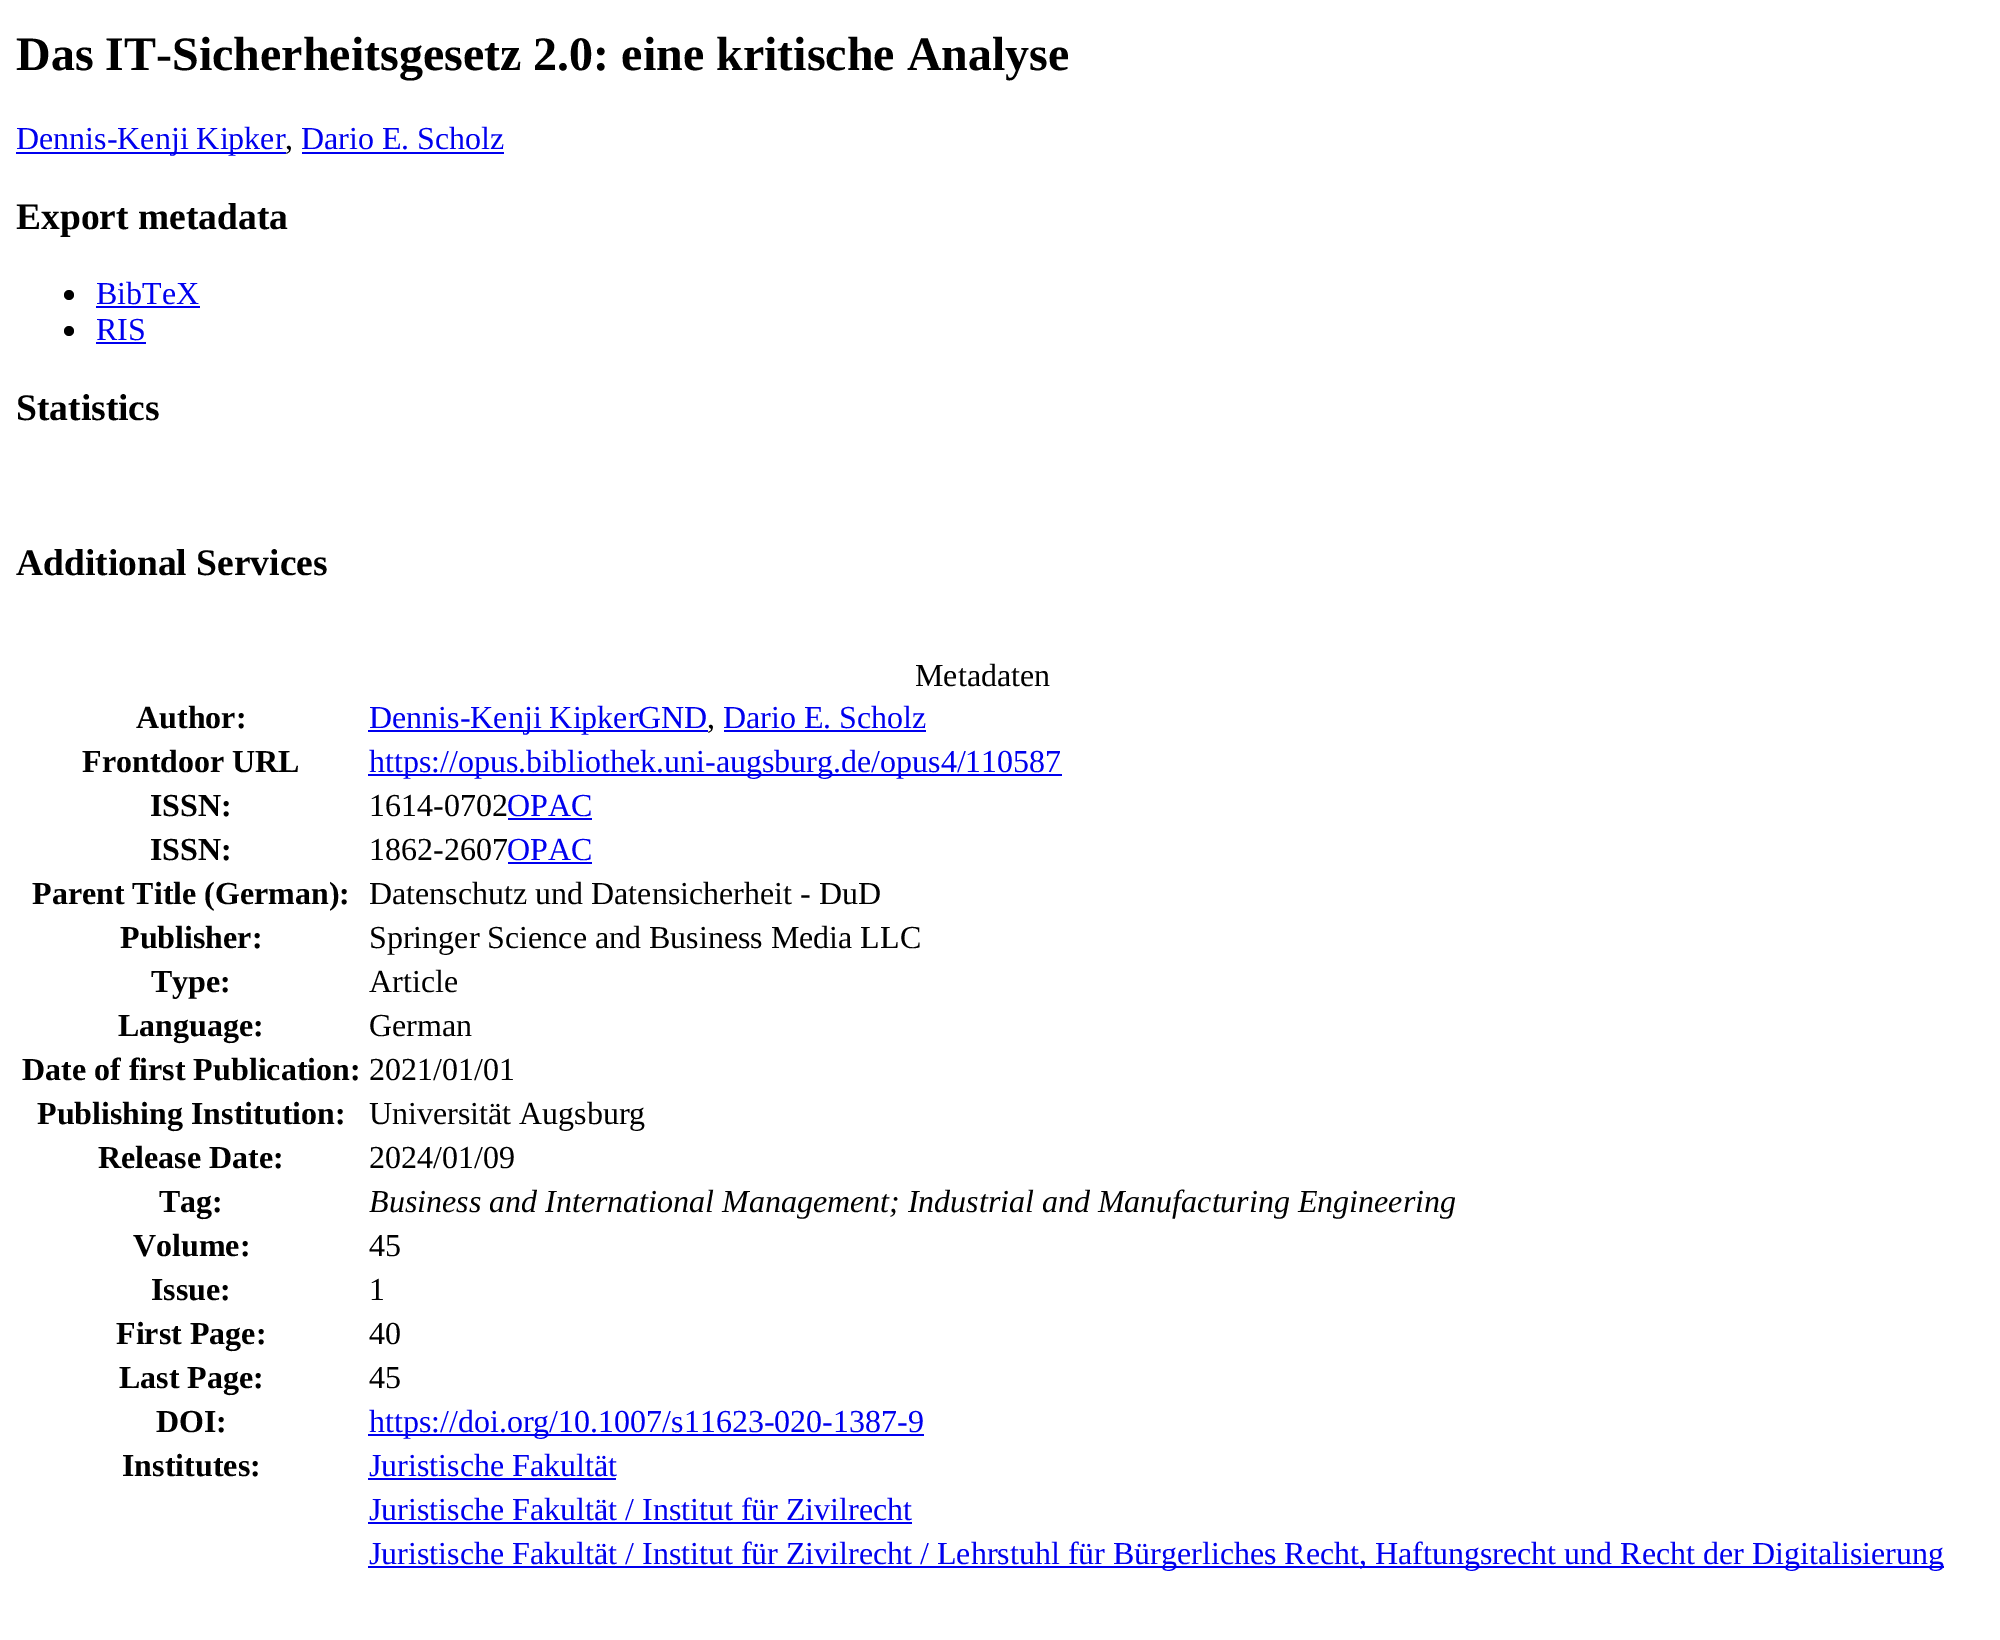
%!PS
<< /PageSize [2000 1640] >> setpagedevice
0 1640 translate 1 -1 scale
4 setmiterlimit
1 setgray
0 0 2000 1640 rectfill
/LiberationSerif-Bold [48 0 0 -48 0 0] selectfont
0 setgray
16 70 moveto (Das IT-Sicherheitsgesetz 2.0: eine kritische Analyse) show
0 0 0.933 setrgbcolor
16 152 270 2 rectfill
/LiberationSerif-Regular [32 0 0 -32 0 0] selectfont
16 149 moveto (Dennis-Kenji Kipker) show
0 setgray
285 149 moveto (,) show
0 0 0.933 setrgbcolor
301 149 moveto (Dario E. Scholz) show
302 152 202 2 rectfill
/LiberationSerif-Bold [37.5 0 0 -37.5 0 0] selectfont
0 setgray
16 229 moveto (Export metadata) show
newpath 69 295 5 0 360 arc closepath fill
/LiberationSerif-Regular [32 0 0 -32 0 0] selectfont
0 0 0.933 setrgbcolor
96 304 moveto (BibTeX) show
96 306 104 2 rectfill
0 setgray
newpath 69 331 5 0 360 arc closepath fill
0 0 0.933 setrgbcolor
96 340 moveto (RIS) show
96 342 50 2 rectfill
/LiberationSerif-Bold [37.5 0 0 -37.5 0 0] selectfont
0 setgray
16 420 moveto (Statistics) show
16 575 moveto (Additional Services) show
/LiberationSerif-Regular [32 0 0 -32 0 0] selectfont
915 686 moveto (Metadaten) show
/LiberationSerif-Bold [32 0 0 -32 0 0] selectfont
136 728 moveto (Author:) show
0 0 0.933 setrgbcolor
368 730 340 2 rectfill
/LiberationSerif-Regular [32 0 0 -32 0 0] selectfont
369 728 moveto (Dennis-Kenji KipkerGND) show
0 setgray
707 728 moveto (,) show
0 0 0.933 setrgbcolor
723 728 moveto (Dario E. Scholz) show
724 730 202 2 rectfill
/LiberationSerif-Bold [32 0 0 -32 0 0] selectfont
0 setgray
82 772 moveto (Frontdoor URL) show
0 0 0.933 setrgbcolor
368 774 694 2 rectfill
/LiberationSerif-Regular [32 0 0 -32 0 0] selectfont
369 772 moveto (https://opus.bibliothek.uni-augsburg.de/opus4/110587) show
/LiberationSerif-Bold [32 0 0 -32 0 0] selectfont
0 setgray
150 816 moveto (ISSN:) show
/LiberationSerif-Regular [32 0 0 -32 0 0] selectfont
369 816 moveto (1614-0702) show
0 0 0.933 setrgbcolor
507 816 moveto (OPAC) show
508 818 84 2 rectfill
/LiberationSerif-Bold [32 0 0 -32 0 0] selectfont
0 setgray
150 860 moveto (ISSN:) show
/LiberationSerif-Regular [32 0 0 -32 0 0] selectfont
369 860 moveto (1862-2607) show
0 0 0.933 setrgbcolor
507 860 moveto (OPAC) show
508 862 84 2 rectfill
/LiberationSerif-Bold [32 0 0 -32 0 0] selectfont
0 setgray
32 904 moveto (Parent Title \(German\):) show
/LiberationSerif-Regular [32 0 0 -32 0 0] selectfont
369 904 moveto (Datenschutz und Datensicherheit - DuD) show
/LiberationSerif-Bold [32 0 0 -32 0 0] selectfont
120 948 moveto (Publisher:) show
/LiberationSerif-Regular [32 0 0 -32 0 0] selectfont
369 948 moveto (Springer Science and Business Media LLC) show
/LiberationSerif-Bold [32 0 0 -32 0 0] selectfont
151 992 moveto (Type:) show
/LiberationSerif-Regular [32 0 0 -32 0 0] selectfont
369 992 moveto (Article) show
/LiberationSerif-Bold [32 0 0 -32 0 0] selectfont
118 1036 moveto (Language:) show
/LiberationSerif-Regular [32 0 0 -32 0 0] selectfont
369 1036 moveto (German) show
/LiberationSerif-Bold [32 0 0 -32 0 0] selectfont
22 1080 moveto (Date of first Publication:) show
/LiberationSerif-Regular [32 0 0 -32 0 0] selectfont
369 1080 moveto (2021/01/01) show
/LiberationSerif-Bold [32 0 0 -32 0 0] selectfont
37 1124 moveto (Publishing Institution:) show
/LiberationSerif-Regular [32 0 0 -32 0 0] selectfont
369 1124 moveto (Universität Augsburg) show
/LiberationSerif-Bold [32 0 0 -32 0 0] selectfont
98 1168 moveto (Release Date:) show
/LiberationSerif-Regular [32 0 0 -32 0 0] selectfont
369 1168 moveto (2024/01/09) show
/LiberationSerif-Bold [32 0 0 -32 0 0] selectfont
159 1212 moveto (Tag:) show
/LiberationSerif-Italic [32 0 0 -32 0 0] selectfont
369 1212 moveto (Business and International Management; Industrial and Manufacturing Engineering) show
/LiberationSerif-Bold [32 0 0 -32 0 0] selectfont
133 1256 moveto (Volume:) show
/LiberationSerif-Regular [32 0 0 -32 0 0] selectfont
369 1256 moveto (45) show
/LiberationSerif-Bold [32 0 0 -32 0 0] selectfont
151 1300 moveto (Issue:) show
/LiberationSerif-Regular [32 0 0 -32 0 0] selectfont
369 1300 moveto (1) show
/LiberationSerif-Bold [32 0 0 -32 0 0] selectfont
116 1344 moveto (First Page:) show
/LiberationSerif-Regular [32 0 0 -32 0 0] selectfont
369 1344 moveto (40) show
/LiberationSerif-Bold [32 0 0 -32 0 0] selectfont
119 1388 moveto (Last Page:) show
/LiberationSerif-Regular [32 0 0 -32 0 0] selectfont
369 1388 moveto (45) show
/LiberationSerif-Bold [32 0 0 -32 0 0] selectfont
156 1432 moveto (DOI:) show
0 0 0.933 setrgbcolor
368 1434 556 2 rectfill
/LiberationSerif-Regular [32 0 0 -32 0 0] selectfont
369 1432 moveto (https://doi.org/10.1007/s11623-020-1387-9) show
/LiberationSerif-Bold [32 0 0 -32 0 0] selectfont
0 setgray
122 1476 moveto (Institutes:) show
/LiberationSerif-Regular [32 0 0 -32 0 0] selectfont
0 0 0.933 setrgbcolor
369 1476 moveto (Juristische Fakultät) show
368 1478 248 2 rectfill
369 1520 moveto (Juristische Fakultät / Institut für Zivilrecht) show
368 1522 544 2 rectfill
368 1566 1576 2 rectfill
369 1564 moveto (Juristische Fakultät / Institut für Zivilrecht / Lehrstuhl für Bürgerliches Recht, Haftungsrecht und Recht der Digitalisierung) show
showpage
